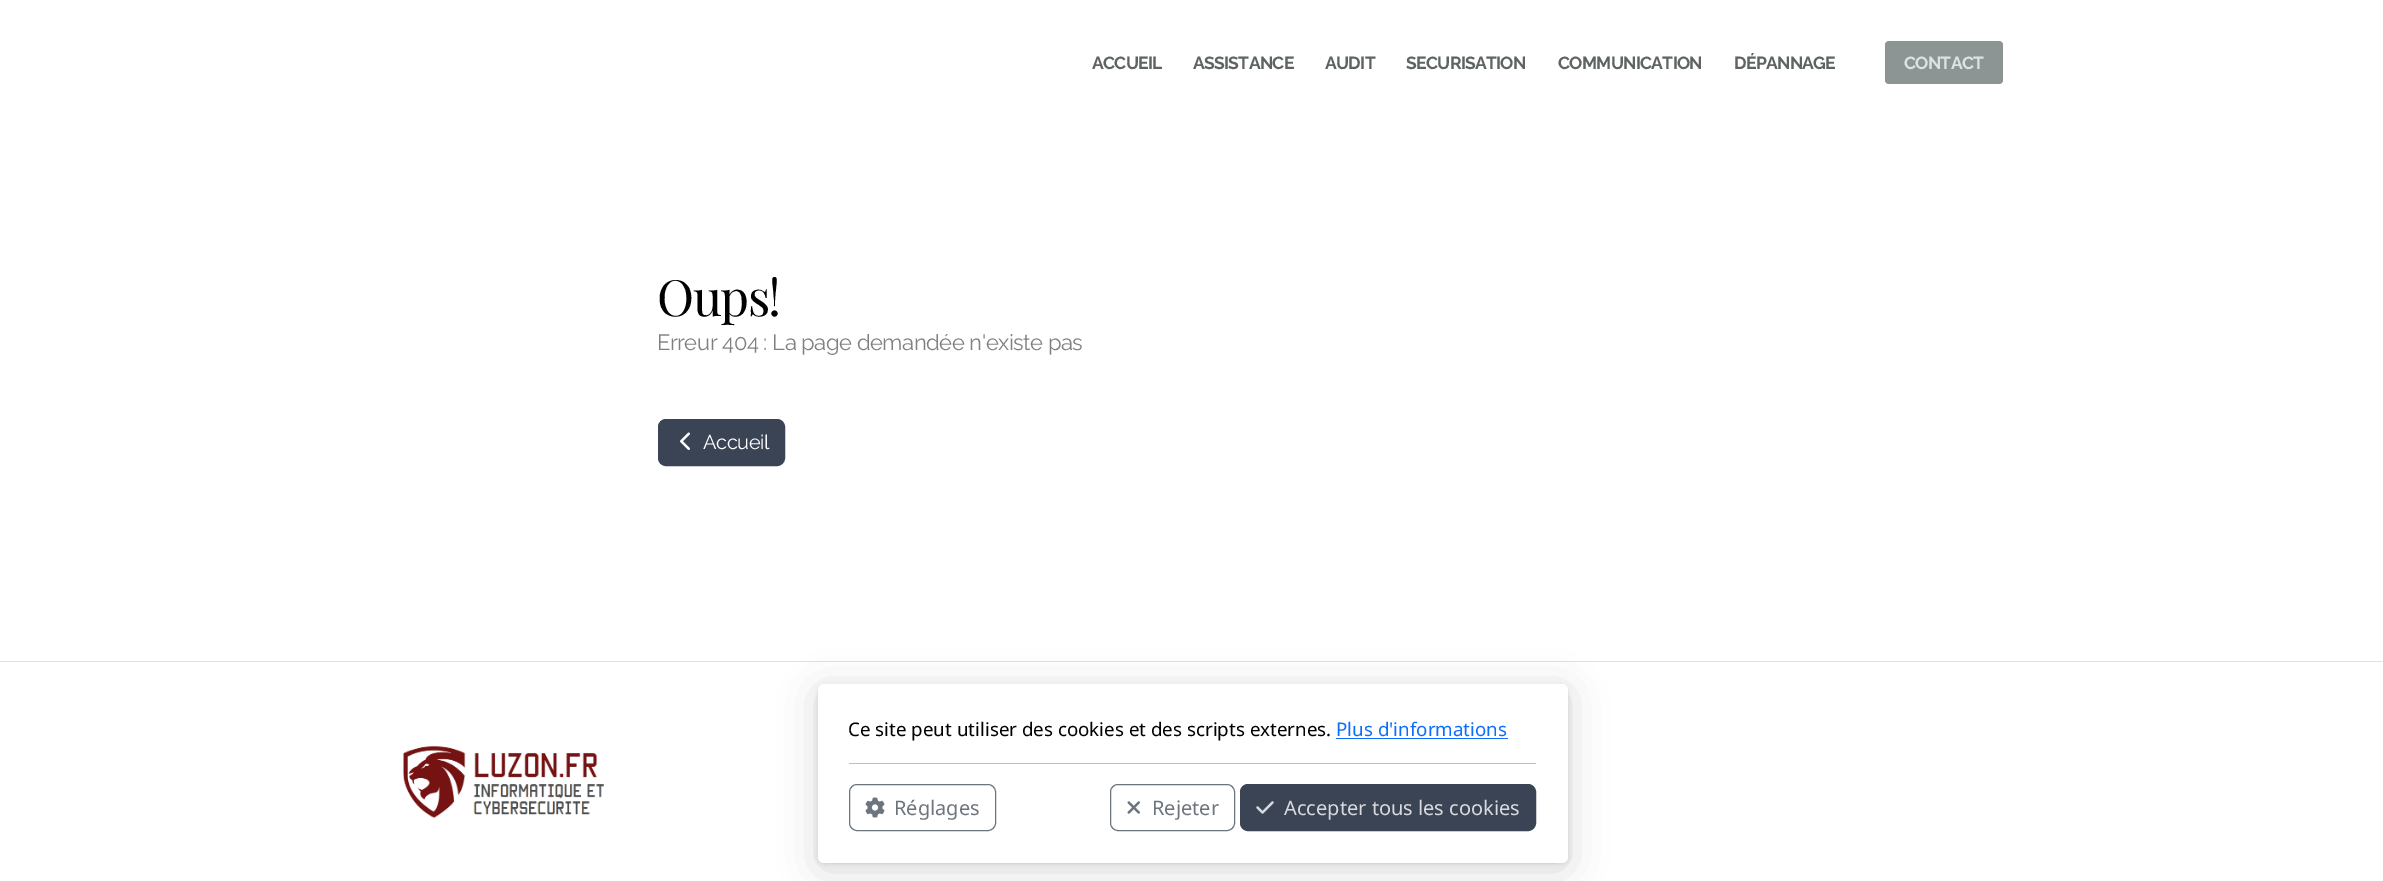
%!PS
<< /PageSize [2383 881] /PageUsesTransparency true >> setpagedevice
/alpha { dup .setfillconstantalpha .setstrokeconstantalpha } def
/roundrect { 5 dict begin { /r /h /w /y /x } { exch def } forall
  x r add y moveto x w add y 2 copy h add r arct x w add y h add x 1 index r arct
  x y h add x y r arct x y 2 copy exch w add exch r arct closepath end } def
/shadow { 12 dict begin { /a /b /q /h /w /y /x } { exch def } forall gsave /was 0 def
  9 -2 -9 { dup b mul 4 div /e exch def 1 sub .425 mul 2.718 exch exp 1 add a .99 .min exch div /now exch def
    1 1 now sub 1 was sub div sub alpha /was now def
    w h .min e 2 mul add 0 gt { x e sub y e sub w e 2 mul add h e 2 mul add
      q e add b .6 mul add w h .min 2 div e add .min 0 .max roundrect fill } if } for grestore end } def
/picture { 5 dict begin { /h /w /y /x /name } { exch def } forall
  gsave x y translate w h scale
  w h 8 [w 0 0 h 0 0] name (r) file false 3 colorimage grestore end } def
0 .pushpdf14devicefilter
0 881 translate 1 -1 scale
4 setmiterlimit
1 setgray
0 0 2383 881 rectfill
/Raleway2-Thin [17.5 0 0 -17.5 0 0] selectfont
0.369 0.392 0.388 setrgbcolor
1092 69 moveto -0.7 0 (ACCUEIL) ashow
1193 69 moveto -0.7 0 (ASSISTANCE) ashow
1325 69 moveto -0.7 0 (AUDIT) ashow
1406 69 moveto -0.7 0 (SECURISATION) ashow
1558 69 moveto -0.7 0 (COMMUNICATION) ashow
1734 69 moveto -0.7 0 (DÉPANNAGE) ashow
0.549 0.584 0.58 setrgbcolor
1885 41 118 43 4 roundrect fill
0.867 0.89 0.886 setrgbcolor
1904 69 moveto -0.7 0 (CONTACT) ashow
/PlayfairDisplay-Regular [50 0 0 -50 0 0] selectfont
0 setgray
657 316 moveto -1.5 0 (Oups!) ashow
/Raleway-Thin [22 0 0 -22 0 0] selectfont
0.502 setgray
657 350 moveto -0.45 0 (Erreur 404 : La page demandée n'existe pas) ashow
0.231 0.267 0.333 setrgbcolor
658.5 419.5 126 46 7.5 roundrect gsave fill grestore
stroke
(img1.rgb) 680 432 10 18 picture
/Raleway-Thin [20 0 0 -20 0 0] selectfont
1 setgray
703 449 moveto -0.45 0 (Accueil) ashow
0.871 0.886 0.902 setrgbcolor
0 661 2383 1 rectfill
(img2.rgb) 403 745 201 73 picture
0 setgray
818 690 750 179 6 19 0.16 shadow
818 685 750 179 6 2 0.1 shadow
1 setgray
818 684 750 179 6 roundrect fill
/NotoSans-Regular [18.75 0 0 -18.75 0 0] selectfont
0 setgray
848 736 moveto (Ce site peut utiliser des cookies et des scripts externes.) show
0.051 0.431 0.992 setrgbcolor
1336 736 moveto (Plus d'informations) show
1336 738 172 1 rectfill
0.749 setgray
849 763 687 1 rectfill
0.424 0.459 0.49 setrgbcolor
849.5 784.5 146 46 7.5 roundrect stroke
(img3.rgb) 865 797 20 21 picture
/NotoSans-Regular [20 0 0 -20 0 0] selectfont
894 815 moveto (Réglages) show
1110.5 784.5 124 46 7.5 roundrect stroke
(img4.rgb) 1127 801 13 13 picture
1152 815 moveto (Rejeter) show
0.231 0.267 0.333 setrgbcolor
1240.5 784.5 295 46 7.5 roundrect gsave fill grestore
stroke
(img5.rgb) 1256 801 18 13 picture
0.847 0.855 0.867 setrgbcolor
1284 815 moveto (Accepter tous les cookies) show
.poppdf14devicefilter showpage
